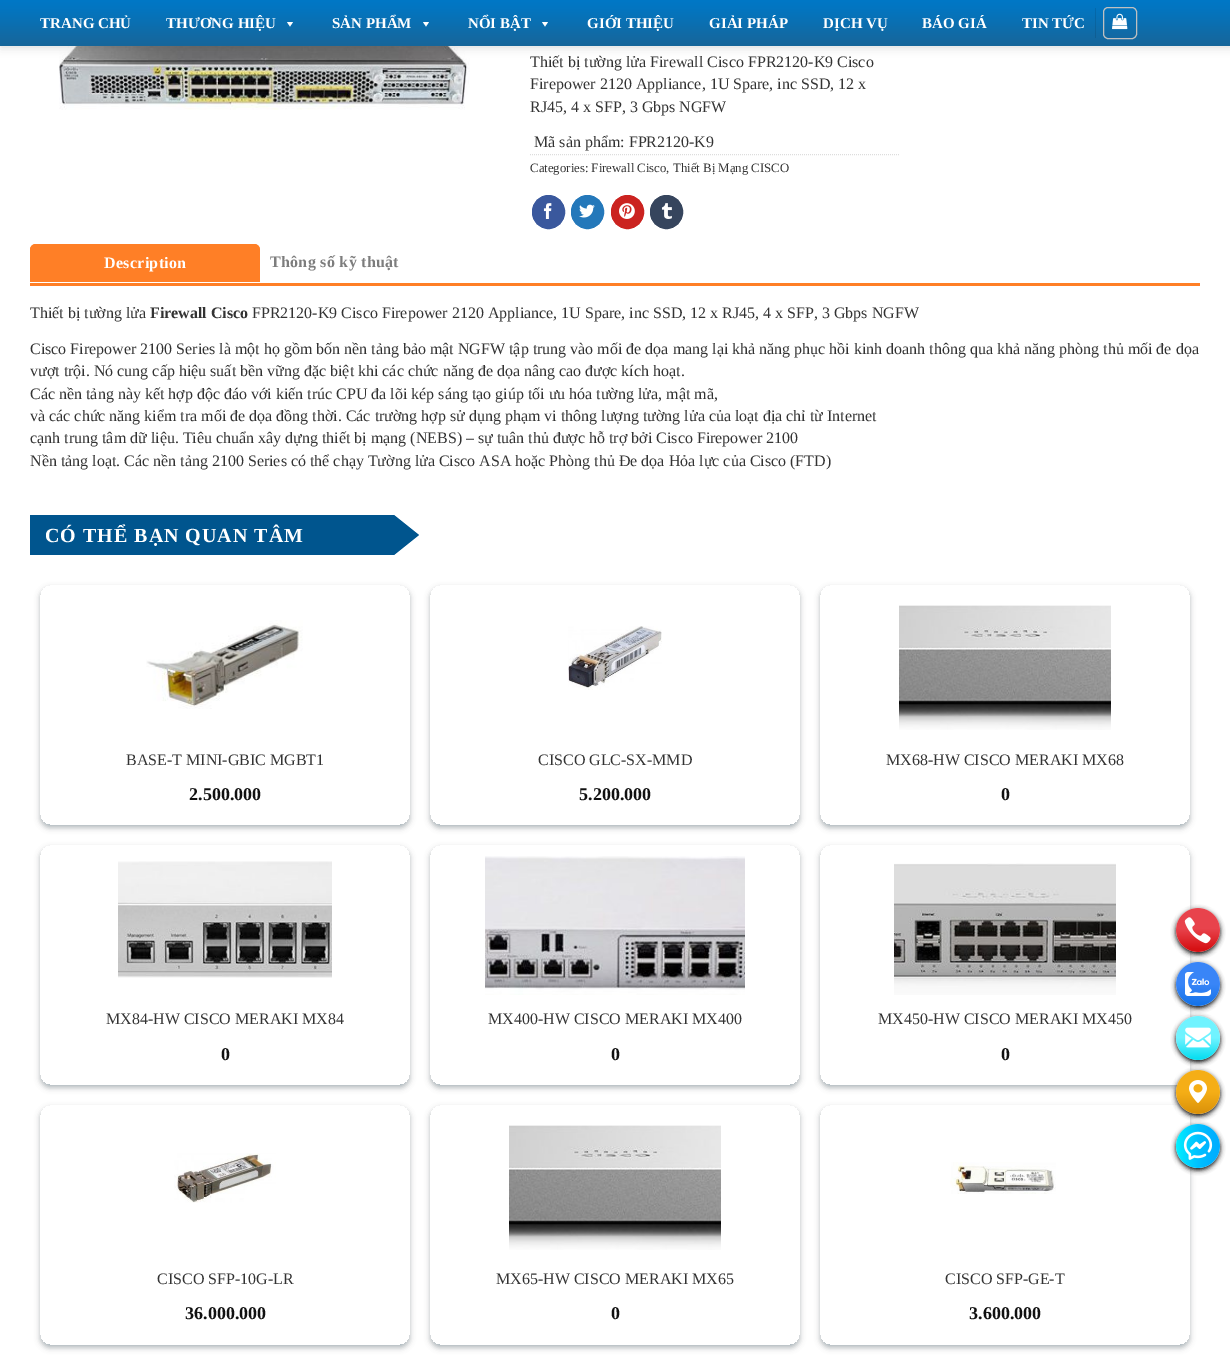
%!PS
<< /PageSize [1230 1358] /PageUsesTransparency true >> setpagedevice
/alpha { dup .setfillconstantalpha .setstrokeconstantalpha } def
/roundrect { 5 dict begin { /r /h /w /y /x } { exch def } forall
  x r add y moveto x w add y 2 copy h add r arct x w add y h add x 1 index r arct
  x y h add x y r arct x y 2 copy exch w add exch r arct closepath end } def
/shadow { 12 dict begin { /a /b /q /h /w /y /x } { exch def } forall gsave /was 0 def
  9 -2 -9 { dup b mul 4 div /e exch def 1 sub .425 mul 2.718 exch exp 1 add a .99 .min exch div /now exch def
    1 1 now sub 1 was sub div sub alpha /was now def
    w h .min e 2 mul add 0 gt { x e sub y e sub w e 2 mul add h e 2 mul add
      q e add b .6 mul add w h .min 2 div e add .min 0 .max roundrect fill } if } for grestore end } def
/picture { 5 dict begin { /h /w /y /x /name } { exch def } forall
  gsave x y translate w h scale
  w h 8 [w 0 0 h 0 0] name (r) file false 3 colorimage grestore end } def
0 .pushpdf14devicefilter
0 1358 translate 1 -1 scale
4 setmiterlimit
1 setgray
0 0 1230 1358 rectfill
(img3.rgb) 59 46 411 64 picture
0 setgray
1 1 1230 46 0 5 0.15 shadow
(img1.rgb) 0 0 1230 46 picture
/Tinos-Bold [15 0 0 -15 0 0] selectfont
1 setgray
40 28 moveto (TRANG CHỦ) show
166 28 moveto (THƯƠNG HIỆU) show
newpath 293 22 moveto 290 26.5 lineto 287 22 lineto closepath fill
332 28 moveto (SẢN PHẨM) show
newpath 429 22 moveto 426 26.5 lineto 423 22 lineto closepath fill
468 28 moveto (NỔI BẬT) show
newpath 548 22 moveto 545 26.5 lineto 542 22 lineto closepath fill
587 28 moveto (GIỚI THIỆU) show
709 28 moveto (GIẢI PHÁP) show
823 28 moveto (DỊCH VỤ) show
922 28 moveto (BÁO GIÁ) show
1022 28 moveto (TIN TỨC) show
0.1 alpha
0 setgray
1095 8 1 30 rectfill
1 alpha
0.753 setgray
1103.5 7.5 33 31 4.5 roundrect stroke
(img2.rgb) 1112 13 16 17 picture
/Tinos-Regular [16 0 0 -16 0 0] selectfont
0.2 setgray
530 67 moveto (Thiết bị tường lửa Firewall Cisco FPR2120-K9 Cisco) show
530 89 moveto (Firepower 2120 Appliance, 1U Spare, inc SSD, 12 x) show
530 112 moveto (RJ45, 4 x SFP, 3 Gbps NGFW) show
534 147 moveto (Mã sản phẩm: FPR2120-K9) show
0.867 setgray
[1 1] 0 setdash
newpath 530 154.5 moveto 900 154.5 lineto stroke
/Tinos-Regular [12.8 0 0 -12.8 0 0] selectfont
0.2 setgray
530 172 moveto (Categories: Firewall Cisco, Thiết Bị Mạng CISCO) show
0.227 0.345 0.616 setrgbcolor
532.5 195.5 32 33 16 roundrect gsave fill grestore
[] 0 setdash
stroke
(img4.rgb) 543 203 9 16 picture
0.141 0.471 0.729 setrgbcolor
571.5 195.5 32 33 16 roundrect gsave fill grestore
stroke
(img5.rgb) 579 204 16 14 picture
0.796 0.137 0.125 setrgbcolor
611.5 195.5 32 33 16 roundrect gsave fill grestore
stroke
(img6.rgb) 619 203 16 16 picture
0.212 0.271 0.365 setrgbcolor
650.5 195.5 32 33 16 roundrect gsave fill grestore
stroke
(img7.rgb) 661 203 11 16 picture
1 0.498 0.149 setrgbcolor
30 283 1170 3 rectfill
newpath 36 244 moveto 254 244 lineto 257.5 244 260 246.5 260 250 curveto 260 282 lineto 30 282 lineto 30 250 lineto 30 246.5 32.5 244 36 244 curveto closepath fill
newpath 36 244 moveto 254 244 lineto 257 244 260 247 260 250 curveto 260 282 lineto 30 282 lineto 30 250 lineto 30 247 33 244 36 244 curveto closepath 36 245 moveto 254 245 lineto 257 245 260 247 260 250 curveto 260 281 lineto 31 281 lineto 31 250 lineto 31 247 33 245 36 245 curveto closepath eofill
/Tinos-Bold [16 0 0 -16 0 0] selectfont
1 setgray
104 268 moveto 0.3 0 (Description) ashow
0.49 setgray
270 267 moveto 0.3 0 (Thông số kỹ thuật) ashow
/Tinos-Regular [16 0 0 -16 0 0] selectfont
0.2 setgray
30 318 moveto (Thiết bị tường lửa) show
/Tinos-Bold [16 0 0 -16 0 0] selectfont
150 318 moveto (Firewall Cisco) show
/Tinos-Regular [16 0 0 -16 0 0] selectfont
252 318 moveto (FPR2120-K9 Cisco Firepower 2120 Appliance, 1U Spare, inc SSD, 12 x RJ45, 4 x SFP, 3 Gbps NGFW) show
30 354 moveto (Cisco Firepower 2100 Series là một họ gồm bốn nền tảng bảo mật NGFW tập trung vào mối đe dọa mang lại khả năng phục hồi kinh doanh thông qua khả năng phòng thủ mối đe dọa) show
30 376 moveto (vượt trội. Nó cung cấp hiệu suất bền vững đặc biệt khi các chức năng đe dọa nâng cao được kích hoạt.) show
30 399 moveto (Các nền tảng này kết hợp độc đáo với kiến trúc CPU đa lõi kép sáng tạo giúp tối ưu hóa tường lửa, mật mã,) show
30 421 moveto (và các chức năng kiểm tra mối đe dọa đồng thời. Các trường hợp sử dụng phạm vi thông lượng tường lửa của loạt địa chỉ từ Internet) show
30 443 moveto (cạnh trung tâm dữ liệu. Tiêu chuẩn xây dựng thiết bị mạng \(NEBS\) – sự tuân thủ được hỗ trợ bởi Cisco Firepower 2100) show
30 466 moveto (Nền tảng loạt. Các nền tảng 2100 Series có thể chạy Tường lửa Cisco ASA hoặc Phòng thủ Đe dọa Hỏa lực của Cisco \(FTD\)) show
0 0.333 0.557 setrgbcolor
30 515 364 40 rectfill
/Tinos-Bold [20 0 0 -20 0 0] selectfont
1 setgray
45 542 moveto 1 0 (CÓ THỂ BẠN QUAN TÂM) ashow
0 0.333 0.557 setrgbcolor
newpath 394 555 moveto 394 515 lineto 419 535 lineto closepath fill
gsave
newpath 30 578 moveto 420 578 lineto 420 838 lineto 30 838 lineto closepath 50 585 moveto 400 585 lineto 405.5 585 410 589.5 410 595 curveto 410 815 lineto 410 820.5 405.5 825 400 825 curveto 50 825 lineto 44.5 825 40 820.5 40 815 curveto 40 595 lineto 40 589.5 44.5 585 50 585 curveto closepath eoclip newpath
0 setgray
40 588 370 240 10 3 0.23 shadow
grestore
gsave
newpath 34 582 moveto 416 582 lineto 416 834 lineto 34 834 lineto closepath 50 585 moveto 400 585 lineto 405.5 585 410 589.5 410 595 curveto 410 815 lineto 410 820.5 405.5 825 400 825 curveto 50 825 lineto 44.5 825 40 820.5 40 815 curveto 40 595 lineto 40 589.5 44.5 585 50 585 curveto closepath eoclip newpath
44 592 362 232 6 3 0.3 shadow
grestore
(img8.rgb) 146 620 157 89 picture
/Tinos-Regular [16 0 0 -16 0 0] selectfont
0.2 setgray
126 765 moveto (BASE-T MINI-GBIC MGBT1) show
/Tinos-Bold [18 0 0 -18 0 0] selectfont
0.067 setgray
189 800 moveto (2.500.000) show
gsave
newpath 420 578 moveto 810 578 lineto 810 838 lineto 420 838 lineto closepath 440 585 moveto 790 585 lineto 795.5 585 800 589.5 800 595 curveto 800 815 lineto 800 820.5 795.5 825 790 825 curveto 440 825 lineto 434.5 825 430 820.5 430 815 curveto 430 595 lineto 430 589.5 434.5 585 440 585 curveto closepath eoclip newpath
0 setgray
430 588 370 240 10 3 0.23 shadow
grestore
gsave
newpath 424 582 moveto 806 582 lineto 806 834 lineto 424 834 lineto closepath 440 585 moveto 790 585 lineto 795.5 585 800 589.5 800 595 curveto 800 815 lineto 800 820.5 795.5 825 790 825 curveto 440 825 lineto 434.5 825 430 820.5 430 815 curveto 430 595 lineto 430 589.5 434.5 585 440 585 curveto closepath eoclip newpath
0 0.333 0.557 setrgbcolor
434 592 362 232 6 3 0.3 shadow
grestore
(img9.rgb) 568 626 94 64 picture
/Tinos-Regular [16 0 0 -16 0 0] selectfont
0.2 setgray
538 765 moveto (CISCO GLC-SX-MMD) show
/Tinos-Bold [18 0 0 -18 0 0] selectfont
0.067 setgray
579 800 moveto (5.200.000) show
gsave
newpath 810 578 moveto 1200 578 lineto 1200 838 lineto 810 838 lineto closepath 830 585 moveto 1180 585 lineto 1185.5 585 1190 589.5 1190 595 curveto 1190 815 lineto 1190 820.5 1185.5 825 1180 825 curveto 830 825 lineto 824.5 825 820 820.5 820 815 curveto 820 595 lineto 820 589.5 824.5 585 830 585 curveto closepath eoclip newpath
0 setgray
820 588 370 240 10 3 0.23 shadow
grestore
gsave
newpath 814 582 moveto 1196 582 lineto 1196 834 lineto 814 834 lineto closepath 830 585 moveto 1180 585 lineto 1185.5 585 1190 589.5 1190 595 curveto 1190 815 lineto 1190 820.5 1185.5 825 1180 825 curveto 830 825 lineto 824.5 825 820 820.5 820 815 curveto 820 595 lineto 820 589.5 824.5 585 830 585 curveto closepath eoclip newpath
0 0.333 0.557 setrgbcolor
824 592 362 232 6 3 0.3 shadow
grestore
(img10.rgb) 899 605 212 125 picture
/Tinos-Regular [16 0 0 -16 0 0] selectfont
0.2 setgray
886 765 moveto (MX68-HW CISCO MERAKI MX68) show
/Tinos-Bold [18 0 0 -18 0 0] selectfont
0.067 setgray
1001 800 moveto (0) show
gsave
newpath 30 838 moveto 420 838 lineto 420 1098 lineto 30 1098 lineto closepath 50 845 moveto 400 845 lineto 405.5 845 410 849.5 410 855 curveto 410 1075 lineto 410 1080.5 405.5 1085 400 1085 curveto 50 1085 lineto 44.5 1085 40 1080.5 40 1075 curveto 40 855 lineto 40 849.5 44.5 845 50 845 curveto closepath eoclip newpath
0 setgray
40 848 370 240 10 3 0.23 shadow
grestore
gsave
newpath 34 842 moveto 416 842 lineto 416 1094 lineto 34 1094 lineto closepath 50 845 moveto 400 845 lineto 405.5 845 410 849.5 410 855 curveto 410 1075 lineto 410 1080.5 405.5 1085 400 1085 curveto 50 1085 lineto 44.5 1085 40 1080.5 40 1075 curveto 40 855 lineto 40 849.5 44.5 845 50 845 curveto closepath eoclip newpath
0 0.333 0.557 setrgbcolor
44 852 362 232 6 3 0.3 shadow
grestore
(img11.rgb) 118 861 214 117 picture
/Tinos-Regular [16 0 0 -16 0 0] selectfont
0.2 setgray
106 1024 moveto (MX84-HW CISCO MERAKI MX84) show
/Tinos-Bold [18 0 0 -18 0 0] selectfont
0.067 setgray
221 1060 moveto (0) show
gsave
newpath 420 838 moveto 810 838 lineto 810 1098 lineto 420 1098 lineto closepath 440 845 moveto 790 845 lineto 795.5 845 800 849.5 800 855 curveto 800 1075 lineto 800 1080.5 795.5 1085 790 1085 curveto 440 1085 lineto 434.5 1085 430 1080.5 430 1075 curveto 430 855 lineto 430 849.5 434.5 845 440 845 curveto closepath eoclip newpath
0 setgray
430 848 370 240 10 3 0.23 shadow
grestore
gsave
newpath 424 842 moveto 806 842 lineto 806 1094 lineto 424 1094 lineto closepath 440 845 moveto 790 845 lineto 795.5 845 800 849.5 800 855 curveto 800 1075 lineto 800 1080.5 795.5 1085 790 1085 curveto 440 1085 lineto 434.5 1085 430 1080.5 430 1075 curveto 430 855 lineto 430 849.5 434.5 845 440 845 curveto closepath eoclip newpath
0 0.333 0.557 setrgbcolor
434 852 362 232 6 3 0.3 shadow
grestore
(img12.rgb) 485 856 260 139 picture
/Tinos-Regular [16 0 0 -16 0 0] selectfont
0.2 setgray
488 1024 moveto (MX400-HW CISCO MERAKI MX400) show
/Tinos-Bold [18 0 0 -18 0 0] selectfont
0.067 setgray
611 1060 moveto (0) show
gsave
newpath 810 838 moveto 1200 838 lineto 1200 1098 lineto 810 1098 lineto closepath 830 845 moveto 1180 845 lineto 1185.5 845 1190 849.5 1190 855 curveto 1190 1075 lineto 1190 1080.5 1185.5 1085 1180 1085 curveto 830 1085 lineto 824.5 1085 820 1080.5 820 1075 curveto 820 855 lineto 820 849.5 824.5 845 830 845 curveto closepath eoclip newpath
0 setgray
820 848 370 240 10 3 0.23 shadow
grestore
gsave
newpath 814 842 moveto 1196 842 lineto 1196 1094 lineto 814 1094 lineto closepath 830 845 moveto 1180 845 lineto 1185.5 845 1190 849.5 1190 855 curveto 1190 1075 lineto 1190 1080.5 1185.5 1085 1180 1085 curveto 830 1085 lineto 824.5 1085 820 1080.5 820 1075 curveto 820 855 lineto 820 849.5 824.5 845 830 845 curveto closepath eoclip newpath
0 0.333 0.557 setrgbcolor
824 852 362 232 6 3 0.3 shadow
grestore
(img13.rgb) 894 863 222 132 picture
/Tinos-Regular [16 0 0 -16 0 0] selectfont
0.2 setgray
878 1024 moveto (MX450-HW CISCO MERAKI MX450) show
/Tinos-Bold [18 0 0 -18 0 0] selectfont
0.067 setgray
1001 1060 moveto (0) show
gsave
newpath 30 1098 moveto 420 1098 lineto 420 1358 lineto 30 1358 lineto closepath 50 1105 moveto 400 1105 lineto 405.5 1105 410 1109.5 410 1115 curveto 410 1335 lineto 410 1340.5 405.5 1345 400 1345 curveto 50 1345 lineto 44.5 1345 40 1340.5 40 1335 curveto 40 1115 lineto 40 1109.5 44.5 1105 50 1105 curveto closepath eoclip newpath
0 setgray
40 1108 370 240 10 3 0.23 shadow
grestore
gsave
newpath 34 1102 moveto 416 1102 lineto 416 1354 lineto 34 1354 lineto closepath 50 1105 moveto 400 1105 lineto 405.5 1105 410 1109.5 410 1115 curveto 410 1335 lineto 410 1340.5 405.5 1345 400 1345 curveto 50 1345 lineto 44.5 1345 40 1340.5 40 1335 curveto 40 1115 lineto 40 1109.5 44.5 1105 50 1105 curveto closepath eoclip newpath
0 0.333 0.557 setrgbcolor
44 1112 362 232 6 3 0.3 shadow
grestore
(img14.rgb) 174 1153 102 50 picture
/Tinos-Regular [16 0 0 -16 0 0] selectfont
0.2 setgray
157 1284 moveto (CISCO SFP-10G-LR) show
/Tinos-Bold [18 0 0 -18 0 0] selectfont
0.067 setgray
185 1319 moveto (36.000.000) show
gsave
newpath 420 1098 moveto 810 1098 lineto 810 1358 lineto 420 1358 lineto closepath 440 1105 moveto 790 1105 lineto 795.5 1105 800 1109.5 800 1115 curveto 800 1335 lineto 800 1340.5 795.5 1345 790 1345 curveto 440 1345 lineto 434.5 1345 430 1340.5 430 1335 curveto 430 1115 lineto 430 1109.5 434.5 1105 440 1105 curveto closepath eoclip newpath
0 setgray
430 1108 370 240 10 3 0.23 shadow
grestore
gsave
newpath 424 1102 moveto 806 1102 lineto 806 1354 lineto 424 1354 lineto closepath 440 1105 moveto 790 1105 lineto 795.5 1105 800 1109.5 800 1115 curveto 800 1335 lineto 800 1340.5 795.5 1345 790 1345 curveto 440 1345 lineto 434.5 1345 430 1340.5 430 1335 curveto 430 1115 lineto 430 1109.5 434.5 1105 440 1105 curveto closepath eoclip newpath
0 0.333 0.557 setrgbcolor
434 1112 362 232 6 3 0.3 shadow
grestore
(img15.rgb) 509 1125 212 125 picture
/Tinos-Regular [16 0 0 -16 0 0] selectfont
0.2 setgray
496 1284 moveto (MX65-HW CISCO MERAKI MX65) show
/Tinos-Bold [18 0 0 -18 0 0] selectfont
0.067 setgray
611 1319 moveto (0) show
gsave
newpath 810 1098 moveto 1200 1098 lineto 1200 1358 lineto 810 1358 lineto closepath 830 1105 moveto 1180 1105 lineto 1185.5 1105 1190 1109.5 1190 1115 curveto 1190 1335 lineto 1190 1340.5 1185.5 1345 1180 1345 curveto 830 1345 lineto 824.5 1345 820 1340.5 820 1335 curveto 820 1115 lineto 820 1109.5 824.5 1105 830 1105 curveto closepath eoclip newpath
0 setgray
820 1108 370 240 10 3 0.23 shadow
grestore
gsave
newpath 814 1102 moveto 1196 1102 lineto 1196 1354 lineto 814 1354 lineto closepath 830 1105 moveto 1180 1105 lineto 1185.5 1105 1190 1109.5 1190 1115 curveto 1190 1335 lineto 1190 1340.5 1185.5 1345 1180 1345 curveto 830 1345 lineto 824.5 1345 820 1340.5 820 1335 curveto 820 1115 lineto 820 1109.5 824.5 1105 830 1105 curveto closepath eoclip newpath
0 0.333 0.557 setrgbcolor
824 1112 362 232 6 3 0.3 shadow
grestore
(img16.rgb) 950 1162 106 32 picture
/Tinos-Regular [16 0 0 -16 0 0] selectfont
0.2 setgray
945 1284 moveto (CISCO SFP-GE-T) show
/Tinos-Bold [18 0 0 -18 0 0] selectfont
0.067 setgray
969 1319 moveto (3.600.000) show
0 setgray
1176 910 44 44 22 2.5 1 shadow
(img17.rgb) 1176 908 44 44 picture
1176 964 44 44 22 2.5 1 shadow
(img18.rgb) 1176 962 44 44 picture
1176 1018 44 44 22 2.5 1 shadow
(img19.rgb) 1176 1016 44 44 picture
1176 1072 44 44 22 2.5 1 shadow
(img20.rgb) 1176 1070 44 44 picture
1176 1126 44 44 22 2.5 1 shadow
(img21.rgb) 1176 1124 44 44 picture
.poppdf14devicefilter showpage
